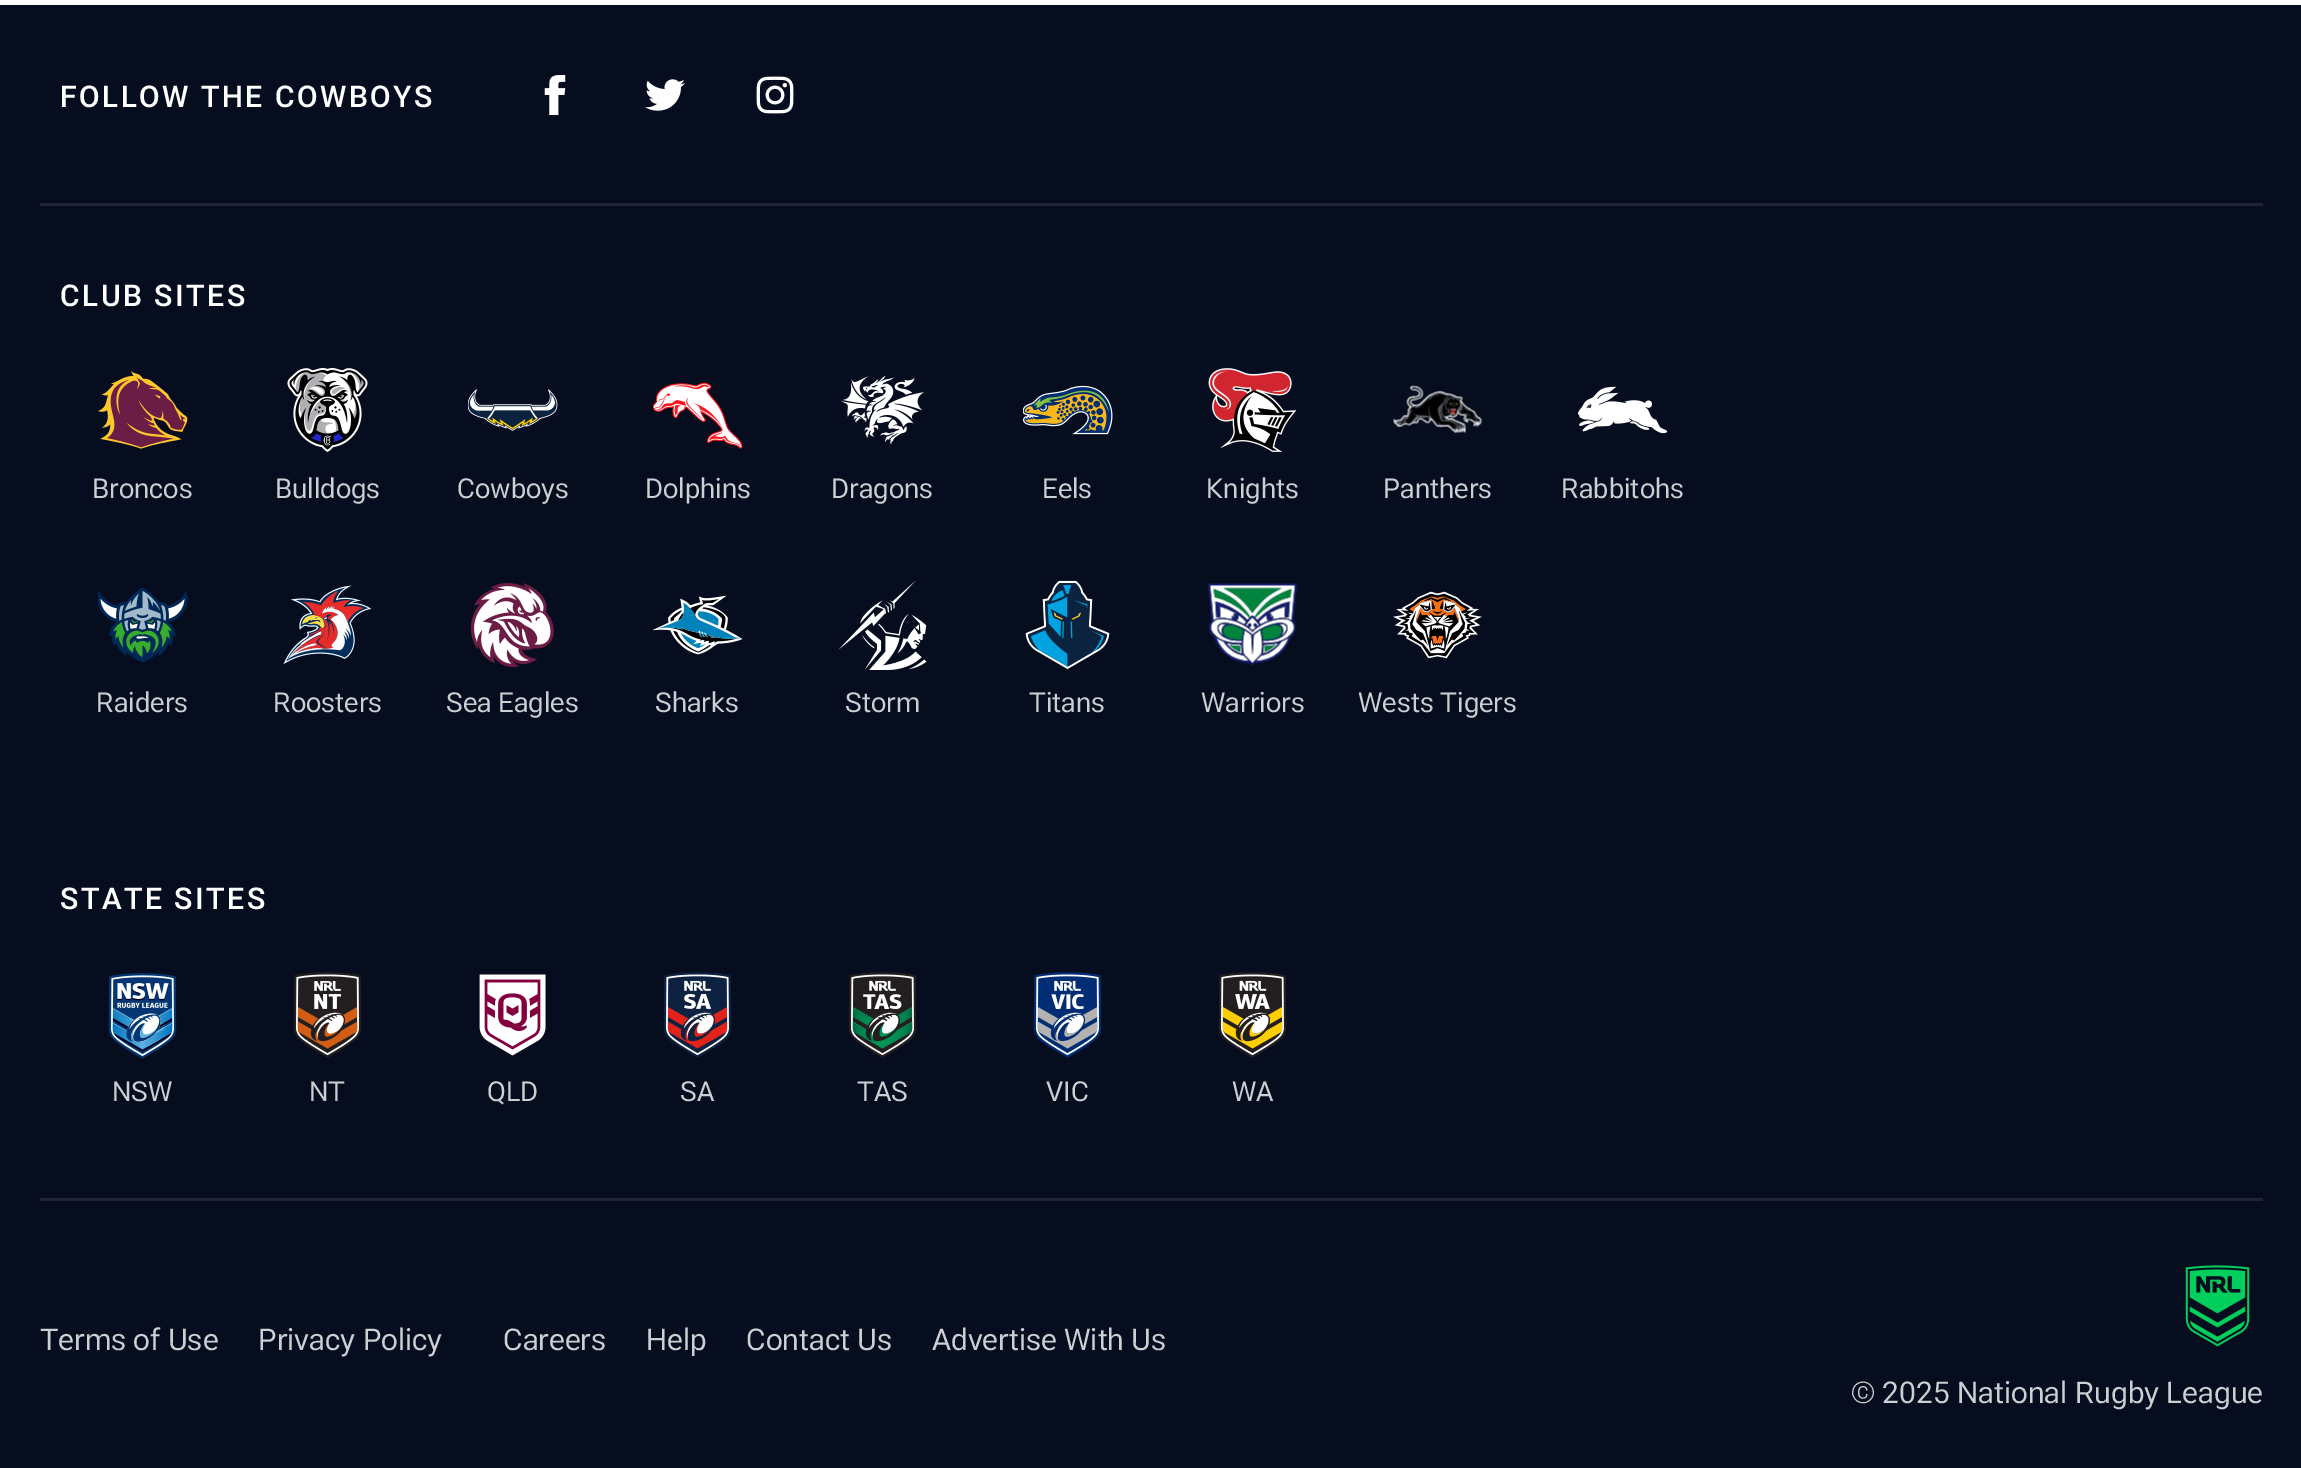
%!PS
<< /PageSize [2301 1468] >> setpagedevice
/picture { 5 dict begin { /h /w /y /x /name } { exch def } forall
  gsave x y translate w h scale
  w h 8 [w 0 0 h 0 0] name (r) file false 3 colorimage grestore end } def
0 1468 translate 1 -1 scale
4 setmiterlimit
1 setgray
0 0 2301 1468 rectfill
0.024 0.051 0.118 setrgbcolor
0 5 2301 1463 rectfill
0.122 0.145 0.208 setrgbcolor
40 203 2223 3 rectfill
/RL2-Medium [30 0 0 -30 0 0] selectfont
1 setgray
60 107 moveto 2.5 0 (FOLLOW THE COWBOYS) ashow
(img1.rgb) 544 75 22 40 picture
(img2.rgb) 645 79 40 32 picture
(img3.rgb) 756 76 38 38 picture
0.122 0.145 0.208 setrgbcolor
40 1198 2223 3 rectfill
1 setgray
60 306 moveto 2.5 0 (CLUB SITES) ashow
(img4.rgb) 98 371 90 78 picture
/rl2-Regular [27.5 0 0 -27.5 0 0] selectfont
0.804 0.812 0.824 setrgbcolor
92 498 moveto (Broncos) show
(img5.rgb) 287 368 81 84 picture
275 498 moveto (Bulldogs) show
(img6.rgb) 468 389 90 42 picture
457 498 moveto (Cowboys) show
(img7.rgb) 653 382 90 67 picture
645 498 moveto (Dolphins) show
(img8.rgb) 840 375 85 70 picture
831 498 moveto (Dragons) show
(img9.rgb) 1023 385 90 50 picture
1042 498 moveto (Eels) show
(img10.rgb) 1208 368 89 84 picture
1206 498 moveto (Knights) show
(img11.rgb) 1393 385 89 49 picture
1383 498 moveto (Panthers) show
(img12.rgb) 1578 386 90 48 picture
1561 498 moveto (Rabbitohs) show
(img13.rgb) 98 587 90 76 picture
96 712 moveto (Raiders) show
(img14.rgb) 283 585 89 80 picture
273 712 moveto (Roosters) show
(img15.rgb) 470 583 84 84 picture
446 712 moveto (Sea Eagles) show
(img16.rgb) 653 595 90 60 picture
655 712 moveto (Sharks) show
(img17.rgb) 838 580 89 90 picture
845 712 moveto (Storm) show
(img18.rgb) 1025 580 85 89 picture
1029 712 moveto (Titans) show
(img19.rgb) 1207 583 91 83 picture
1201 712 moveto (Warriors) show
(img20.rgb) 1393 591 89 68 picture
1358 712 moveto (Wests Tigers) show
/RL2-Medium [30 0 0 -30 0 0] selectfont
1 setgray
60 909 moveto 2.5 0 (STATE SITES) ashow
(img21.rgb) 108 973 69 86 picture
/rl2-Regular [27.5 0 0 -27.5 0 0] selectfont
0.804 0.812 0.824 setrgbcolor
112 1101 moveto (NSW) show
(img22.rgb) 293 972 69 86 picture
309 1101 moveto (NT) show
(img23.rgb) 479 974 67 82 picture
487 1101 moveto (QLD) show
(img24.rgb) 663 972 69 86 picture
680 1101 moveto (SA) show
(img25.rgb) 848 972 69 86 picture
857 1101 moveto (TAS) show
(img26.rgb) 1033 972 69 86 picture
1046 1101 moveto (VIC) show
(img27.rgb) 1218 972 69 86 picture
1232 1101 moveto (WA) show
/rl2-Regular [30 0 0 -30 0 0] selectfont
40 1350 moveto (Terms of Use) show
258 1350 moveto (Privacy Policy) show
503 1350 moveto (Careers) show
646 1350 moveto (Help) show
746 1350 moveto (Contact Us) show
932 1350 moveto (Advertise With Us) show
(img28.rgb) 2185 1265 65 82 picture
1851 1403 moveto (© 2025 National Rugby League) show
showpage
